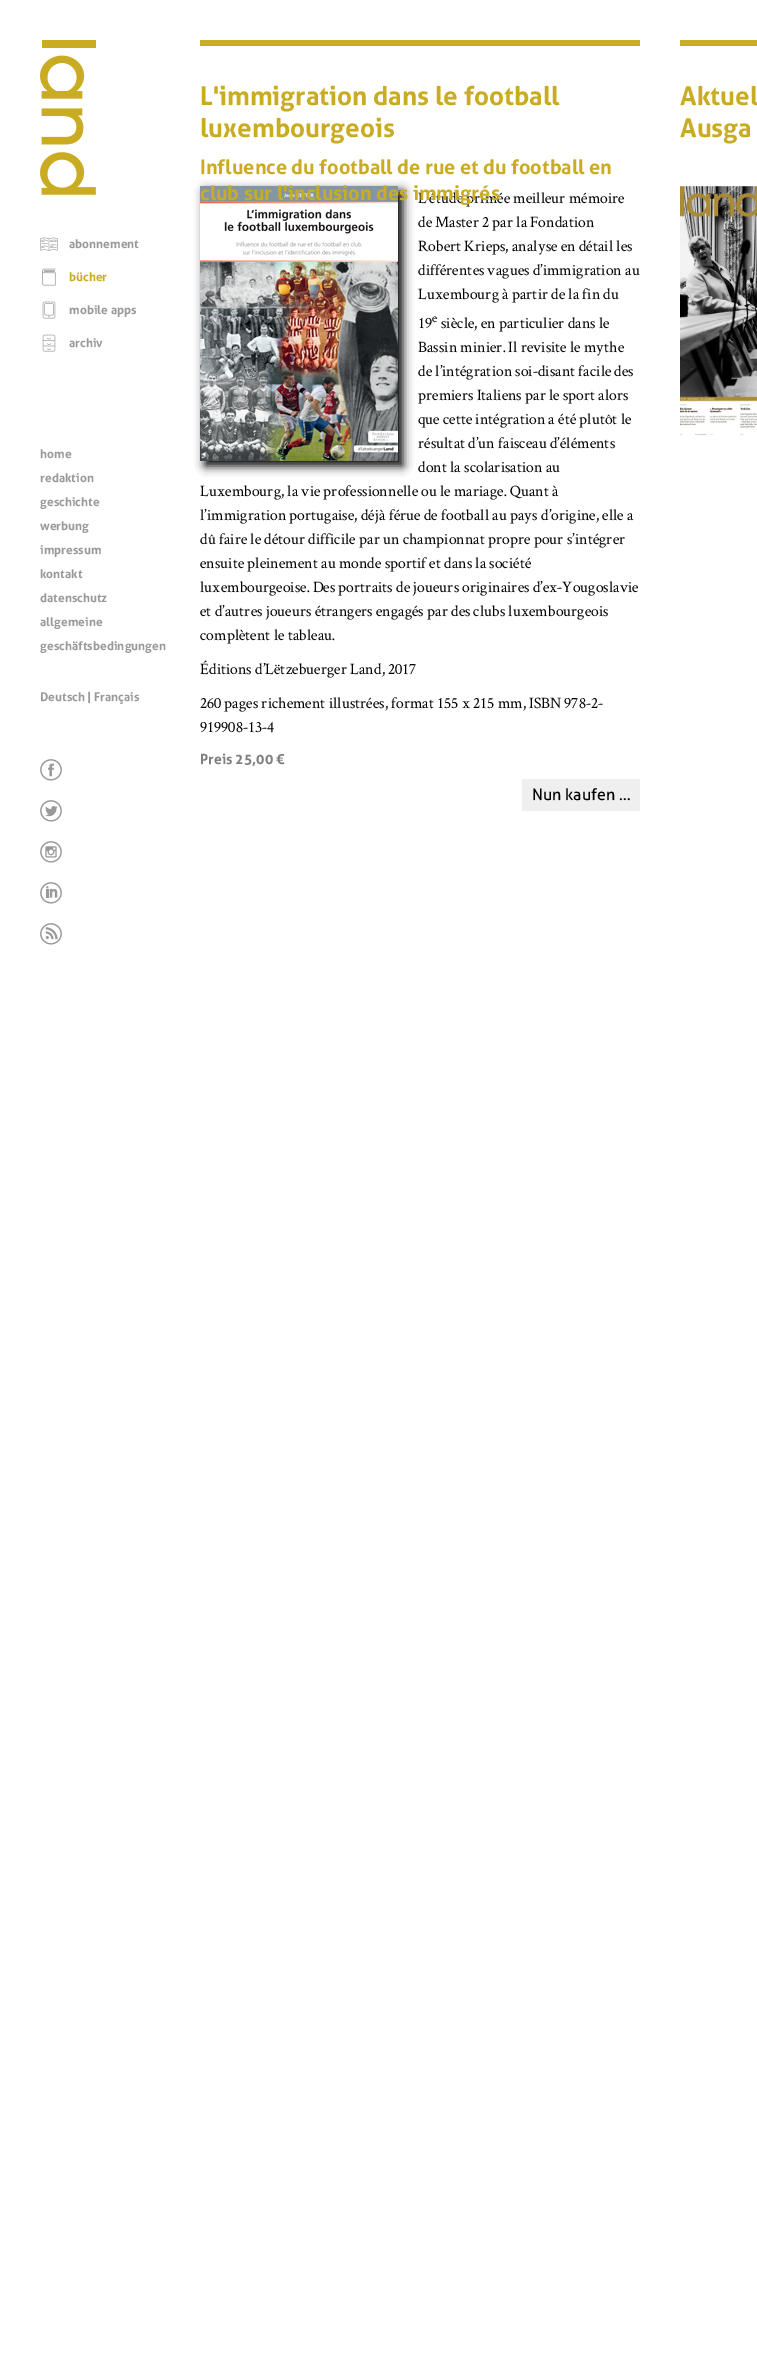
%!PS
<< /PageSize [757 2376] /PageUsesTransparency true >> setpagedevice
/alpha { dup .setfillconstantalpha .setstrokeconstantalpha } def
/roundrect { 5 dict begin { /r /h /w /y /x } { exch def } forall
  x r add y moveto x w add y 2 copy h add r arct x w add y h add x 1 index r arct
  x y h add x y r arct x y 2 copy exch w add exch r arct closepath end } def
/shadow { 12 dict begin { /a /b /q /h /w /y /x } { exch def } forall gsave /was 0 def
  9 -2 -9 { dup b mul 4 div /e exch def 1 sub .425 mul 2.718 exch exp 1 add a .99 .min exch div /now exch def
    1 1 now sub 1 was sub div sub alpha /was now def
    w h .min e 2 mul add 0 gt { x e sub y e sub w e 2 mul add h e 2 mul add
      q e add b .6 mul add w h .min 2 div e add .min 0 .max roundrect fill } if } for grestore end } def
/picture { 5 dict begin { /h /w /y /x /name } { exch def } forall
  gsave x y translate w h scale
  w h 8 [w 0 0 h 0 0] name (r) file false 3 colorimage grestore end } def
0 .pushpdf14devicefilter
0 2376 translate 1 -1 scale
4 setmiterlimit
1 setgray
0 0 757 2376 rectfill
(img1.rgb) 40 40 56 155 picture
(img2.rgb) 40 237 18 14 picture
/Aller-Bold [12 0 0 -12 0 0] selectfont
0.6 setgray
69 248 moveto (abonnement) show
(img3.rgb) 42 268 14 18 picture
0.792 0.675 0.137 setrgbcolor
69 281 moveto (bücher) show
(img4.rgb) 42 301 14 18 picture
0.6 setgray
69 314 moveto (mobile apps) show
(img5.rgb) 42 334 14 18 picture
69 347 moveto (archiv) show
40 458 moveto (home) show
40 482 moveto (redaktion) show
40 506 moveto (geschichte) show
40 530 moveto (werbung) show
40 554 moveto (impressum) show
40 578 moveto (kontakt) show
40 602 moveto (datenschutz) show
40 626 moveto (allgemeine) show
40 650 moveto (geschäftsbedingungen) show
40 701 moveto (Deutsch | Français) show
(img6.rgb) 40 759 22 22 picture
(img7.rgb) 40 800 22 22 picture
(img8.rgb) 40 841 22 22 picture
(img9.rgb) 40 882 22 22 picture
(img10.rgb) 40 923 22 22 picture
0.792 0.675 0.137 setrgbcolor
200 40 440 6 rectfill
/Aller-Bold [26 0 0 -26 0 0] selectfont
200 105 moveto (L'immigration dans le football) show
200 137 moveto (luxembourgeois) show
/Aller-Bold [20 0 0 -20 0 0] selectfont
200 174 moveto (Influence du football de rue et du football en) show
0 setgray
205 191 198 275 0 5 1 shadow
(img11.rgb) 200 186 198 275 picture
/CrimsonText-Regular [16 0 0 -16 0 0] selectfont
418 203 moveto (L'étude primée meilleur mémoire) show
/Aller-Bold [20 0 0 -20 0 0] selectfont
0.792 0.675 0.137 setrgbcolor
200 200 moveto (club sur l'inclusion des immigrés) show
/CrimsonText-Regular [16 0 0 -16 0 0] selectfont
0 setgray
418 227 moveto (de Master 2 par la Fondation) show
418 251 moveto (Robert Krieps, analyse en détail les) show
418 275 moveto (différentes vagues d’immigration au) show
418 299 moveto (Luxembourg à partir de la fin du) show
418 328 moveto (19) show
/CrimsonText-Regular [13 0 0 -13 0 0] selectfont
432 322 moveto (e) show
/CrimsonText-Regular [16 0 0 -16 0 0] selectfont
441 328 moveto (siècle, en particulier dans le) show
418 352 moveto (Bassin minier. Il revisite le mythe) show
418 376 moveto (de l’intégration soi-disant facile des) show
418 400 moveto (premiers Italiens par le sport alors) show
418 424 moveto (que cette intégration a été plutôt le) show
418 448 moveto (résultat d’un faisceau d’éléments) show
418 472 moveto (dont la scolarisation au) show
200 496 moveto (Luxembourg, la vie professionnelle ou le mariage. Quant à) show
200 520 moveto (l’immigration portugaise, déjà férue de football au pays d’origine, elle a) show
200 544 moveto (dû faire le détour difficile par un championnat propre pour s’intégrer) show
200 568 moveto (ensuite pleinement au monde sportif et dans la société) show
200 592 moveto (luxembourgeoise. Des portraits de joueurs originaires d’ex-Yougoslavie) show
200 616 moveto (et d’autres joueurs étrangers engagés par des clubs luxembourgeois) show
200 640 moveto (complètent le tableau.) show
200 674 moveto (Éditions d’Lëtzebuerger Land, 2017) show
200 708 moveto (260 pages richement illustrées, format 155 x 215 mm, ISBN 978-2-) show
200 732 moveto (919908-13-4) show
/Aller-Bold [14 0 0 -14 0 0] selectfont
0.502 0.498 0.502 setrgbcolor
200 764 moveto (Preis 25,00 €) show
0.937 setgray
522 779 118 32 rectfill
/Aller-Regular [16 0 0 -16 0 0] selectfont
0 setgray
532 800 moveto (Nun kaufen …) show
0.792 0.675 0.137 setrgbcolor
680 40 77 6 rectfill
/Aller-Bold [26 0 0 -26 0 0] selectfont
680 105 moveto (Aktuel) show
680 137 moveto (Ausga) show
(img12.rgb) 680 186 77 250 picture
.poppdf14devicefilter showpage
